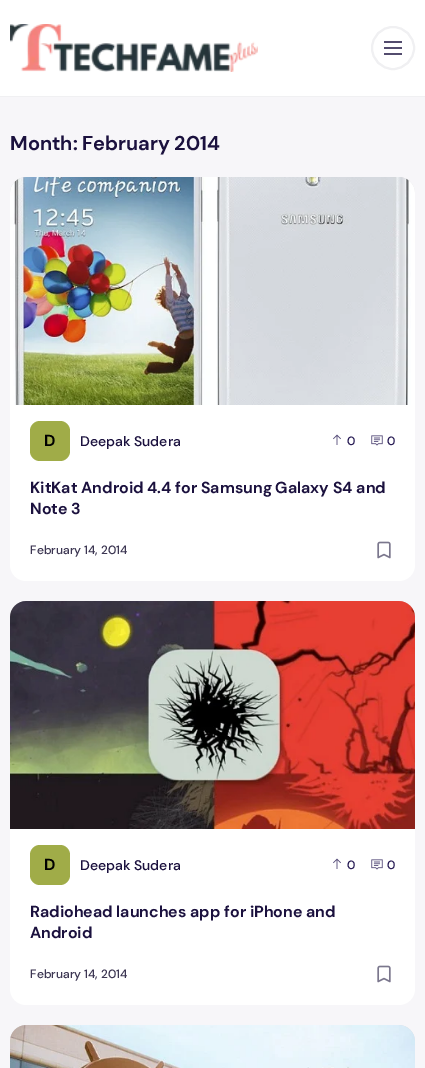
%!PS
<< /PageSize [425 1068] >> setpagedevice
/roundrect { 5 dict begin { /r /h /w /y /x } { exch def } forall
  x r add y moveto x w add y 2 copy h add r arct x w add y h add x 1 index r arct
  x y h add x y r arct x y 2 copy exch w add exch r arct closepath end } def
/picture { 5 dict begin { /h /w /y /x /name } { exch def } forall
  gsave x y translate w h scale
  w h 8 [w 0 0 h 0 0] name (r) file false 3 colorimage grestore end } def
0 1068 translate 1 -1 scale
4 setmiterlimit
1 setgray
0 0 425 1068 rectfill
0.941 0.941 0.949 setrgbcolor
0 96 425 1 rectfill
(img1.rgb) 10 24 248 48 picture
2 setlinewidth
newpath 393 48 21 0 360 arc closepath stroke
(img2.rgb) 384 41 18 14 picture
0.969 0.965 0.976 setrgbcolor
0 97 425 971 rectfill
/DMSans-Bold [20 0 0 -20 0 0] selectfont
0.106 0.067 0.243 setrgbcolor
10 150 moveto (Month: February 2014) show
1 setgray
10 177 405 404 16 roundrect fill
0.859 0.855 0.871 setrgbcolor
newpath 26 177 moveto 399 177 lineto 408 177 415 184 415 193 curveto 415 405 lineto 10 405 lineto 10 193 lineto 10 184 17 177 26 177 curveto closepath fill
(img3.rgb) 10 177 405 228 picture
0.627 0.675 0.282 setrgbcolor
30 421 40 40 10 roundrect fill
/DMSans-Bold [16 0 0 -16 0 0] selectfont
0 setgray
44 446 moveto (D) show
/DMSans-Medium [14 0 0 -14 0 0] selectfont
0.106 0.067 0.243 setrgbcolor
80 446 moveto (Deepak Sudera) show
(img4.rgb) 333 434 8 11 picture
/DMSans-Medium [12 0 0 -12 0 0] selectfont
0.157 0.11 0.333 setrgbcolor
347 445 moveto (0) show
(img5.rgb) 371 435 12 11 picture
387 445 moveto (0) show
/DMSans-Bold [16 0 0 -16 0 0] selectfont
0.106 0.067 0.243 setrgbcolor
30 493 moveto (KitKat Android 4.4 for Samsung Galaxy S4 and) show
30 514 moveto (Note 3) show
/DMSans-Medium [12 0 0 -12 0 0] selectfont
0.239 0.216 0.325 setrgbcolor
30 554 moveto (February 14, 2014) show
(img6.rgb) 377 541 14 18 picture
1 setgray
10 601 405 404 16 roundrect fill
0.859 0.855 0.871 setrgbcolor
newpath 26 601 moveto 399 601 lineto 408 601 415 608 415 617 curveto 415 829 lineto 10 829 lineto 10 617 lineto 10 608 17 601 26 601 curveto closepath fill
(img7.rgb) 10 601 405 228 picture
0.627 0.675 0.282 setrgbcolor
30 845 40 40 10 roundrect fill
/DMSans-Bold [16 0 0 -16 0 0] selectfont
0 setgray
44 870 moveto (D) show
/DMSans-Medium [14 0 0 -14 0 0] selectfont
0.106 0.067 0.243 setrgbcolor
80 870 moveto (Deepak Sudera) show
(img4.rgb) 333 858 8 11 picture
/DMSans-Medium [12 0 0 -12 0 0] selectfont
0.157 0.11 0.333 setrgbcolor
347 869 moveto (0) show
(img5.rgb) 371 859 12 11 picture
387 869 moveto (0) show
/DMSans-Bold [16 0 0 -16 0 0] selectfont
0.106 0.067 0.243 setrgbcolor
30 917 moveto (Radiohead launches app for iPhone and) show
30 938 moveto (Android) show
/DMSans-Medium [12 0 0 -12 0 0] selectfont
0.239 0.216 0.325 setrgbcolor
30 978 moveto (February 14, 2014) show
(img6.rgb) 377 965 14 18 picture
0.859 0.855 0.871 setrgbcolor
newpath 26 1025 moveto 399 1025 lineto 408 1025 415 1032 415 1041 curveto 415 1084 lineto 10 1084 lineto 10 1041 lineto 10 1032 17 1025 26 1025 curveto closepath fill
(img8.rgb) 10 1025 405 43 picture
showpage
